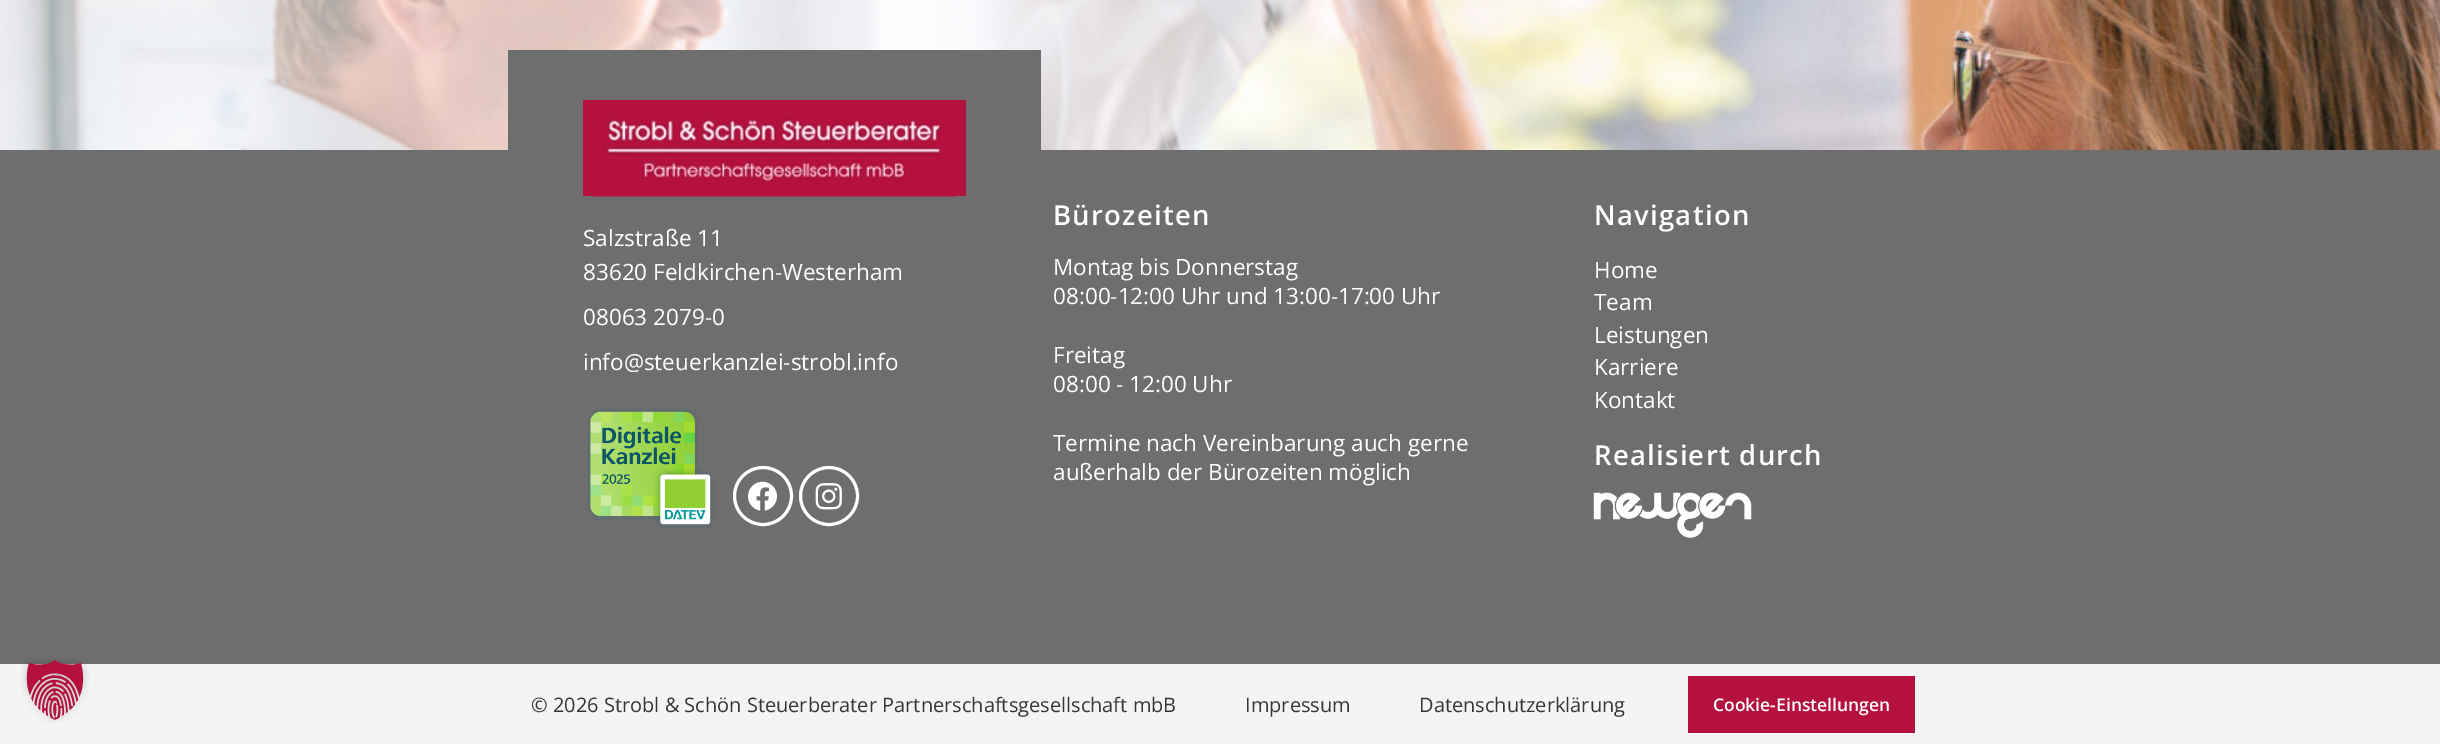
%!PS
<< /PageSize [2440 744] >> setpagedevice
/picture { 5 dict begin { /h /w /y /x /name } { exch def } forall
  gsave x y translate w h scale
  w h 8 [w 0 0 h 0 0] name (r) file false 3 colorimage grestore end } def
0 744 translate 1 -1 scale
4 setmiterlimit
1 setgray
0 0 2440 744 rectfill
(img1.rgb) 0 0 2440 150 picture
0.431 setgray
0 150 2440 514 rectfill
0.957 setgray
0 664 2440 80 rectfill
(img2.rgb) 21 658 68 65 picture
0.431 setgray
508 50 533 100 rectfill
0.706 0.067 0.243 setrgbcolor
583 100 383 96 rectfill
(img3.rgb) 592 119 363 78 picture
/OpenSans-Regular [22.5 0 0 -22.5 0 0] selectfont
1 setgray
583 246 moveto (Salzstraße 11) show
583 280 moveto (83620 Feldkirchen-Westerham) show
583 325 moveto (08063 2079-0) show
583 370 moveto (info@steuerkanzlei-strobl.info) show
(img4.rgb) 587 408 128 121 picture
3 setlinewidth
newpath 763 496 28.5 0 360 arc closepath stroke
(img5.rgb) 748 481 29 30 picture
newpath 829 496 28.5 0 360 arc closepath stroke
(img6.rgb) 815 483 27 27 picture
/OpenSans-SemiBold [27.5 0 0 -27.5 0 0] selectfont
1053 225 moveto 1.25 0 (Bürozeiten) ashow
/OpenSans-Regular [22.5 0 0 -22.5 0 0] selectfont
1053 275 moveto (Montag bis Donnerstag) show
1053 304 moveto (08:00-12:00 Uhr und 13:00-17:00 Uhr) show
1053 363 moveto (Freitag) show
1053 392 moveto (08:00 - 12:00 Uhr) show
1053 451 moveto (Termine nach Vereinbarung auch gerne) show
1053 480 moveto (außerhalb der Bürozeiten möglich) show
/OpenSans-SemiBold [27.5 0 0 -27.5 0 0] selectfont
1594 225 moveto 1.25 0 (Navigation) ashow
/OpenSans-Regular [22.5 0 0 -22.5 0 0] selectfont
1594 278 moveto (Home) show
1594 310 moveto (Team) show
1594 343 moveto (Leistungen) show
1594 375 moveto (Karriere) show
1594 408 moveto (Kontakt) show
/OpenSans-SemiBold [27.5 0 0 -27.5 0 0] selectfont
1594 465 moveto 1.25 0 (Realisiert durch) ashow
(img7.rgb) 1593 492 159 46 picture
/OpenSans-Regular [20 0 0 -20 0 0] selectfont
0.212 setgray
531 712 moveto (© 2026 Strobl & Schön Steuerberater Partnerschaftsgesellschaft mbB) show
1245 712 moveto (Impressum) show
1419 712 moveto (Datenschutzerklärung) show
0.706 0.067 0.243 setrgbcolor
1688 676 227 57 rectfill
/OpenSans-SemiBold [17.5 0 0 -17.5 0 0] selectfont
1 setgray
1713 711 moveto (Cookie-Einstellungen) show
showpage
